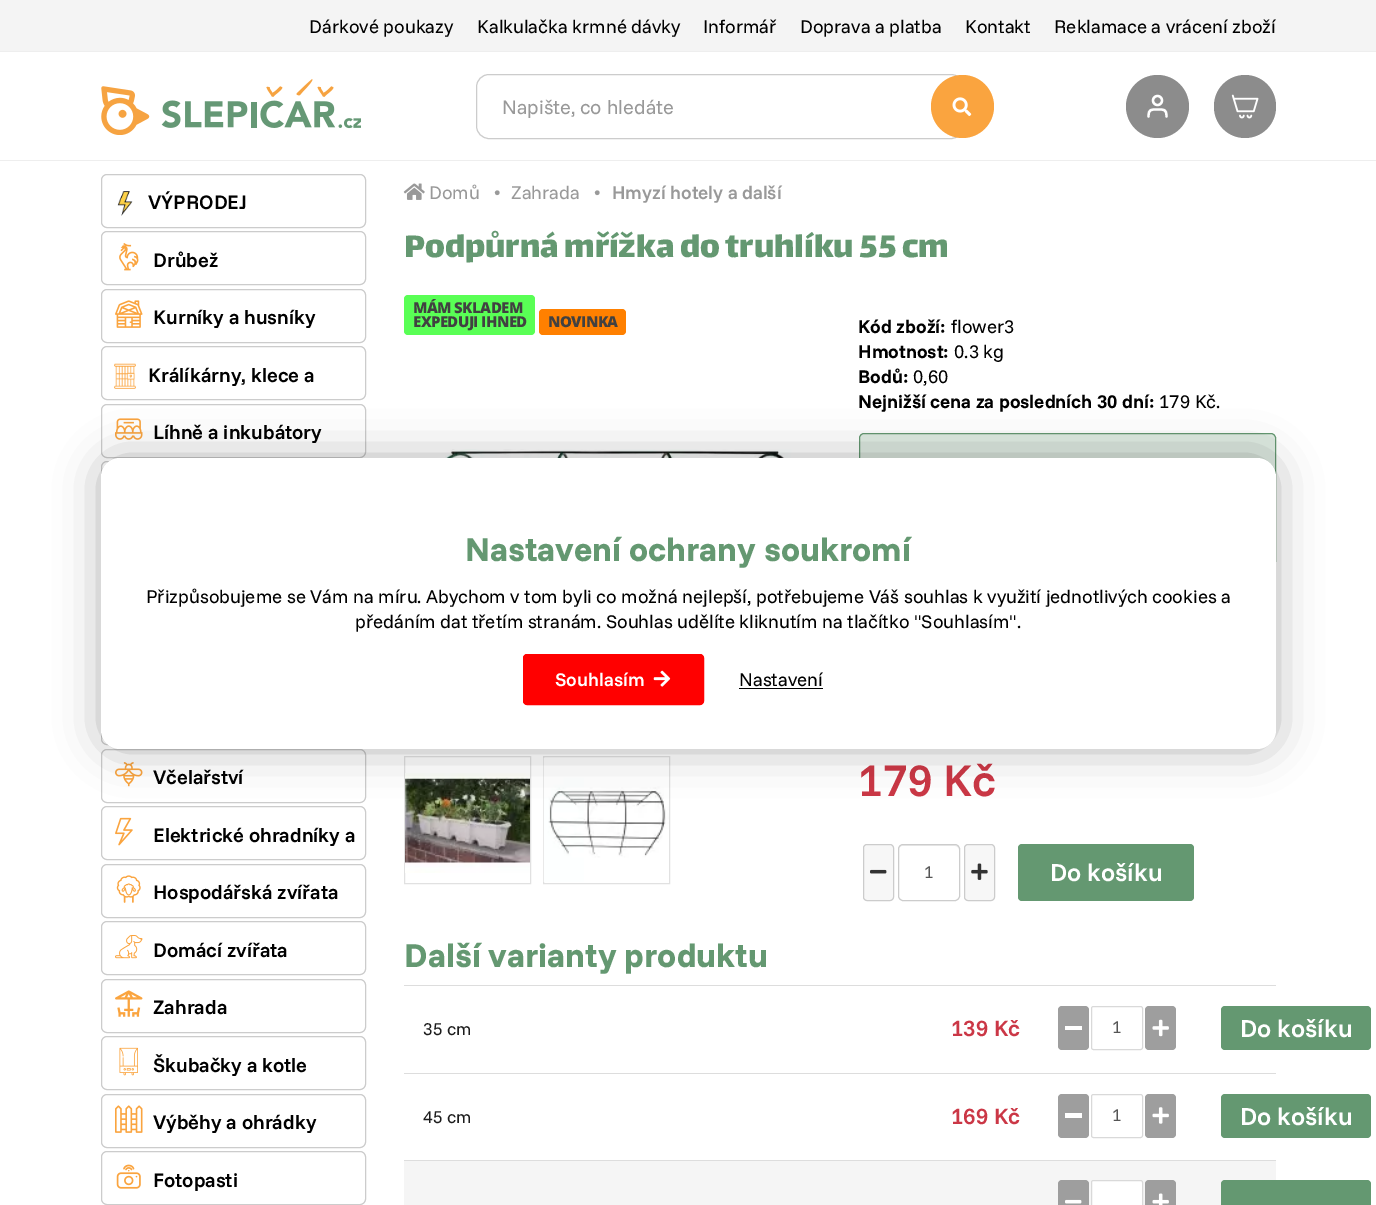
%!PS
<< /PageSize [1376 1205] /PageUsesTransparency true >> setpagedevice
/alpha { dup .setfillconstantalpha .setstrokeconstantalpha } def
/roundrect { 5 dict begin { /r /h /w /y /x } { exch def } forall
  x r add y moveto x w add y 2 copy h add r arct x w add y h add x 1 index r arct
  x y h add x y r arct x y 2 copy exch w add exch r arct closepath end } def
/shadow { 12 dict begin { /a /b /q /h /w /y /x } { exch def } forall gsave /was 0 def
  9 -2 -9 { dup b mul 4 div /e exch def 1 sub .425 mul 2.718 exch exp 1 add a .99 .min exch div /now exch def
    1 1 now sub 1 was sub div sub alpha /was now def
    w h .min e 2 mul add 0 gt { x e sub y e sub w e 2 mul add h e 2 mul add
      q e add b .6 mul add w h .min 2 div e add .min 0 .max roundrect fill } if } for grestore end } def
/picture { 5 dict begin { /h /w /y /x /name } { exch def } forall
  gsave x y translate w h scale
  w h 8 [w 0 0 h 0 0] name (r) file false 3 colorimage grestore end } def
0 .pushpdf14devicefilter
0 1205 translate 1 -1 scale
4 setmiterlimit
1 setgray
0 0 1376 1205 rectfill
0.957 setgray
0 0 1376 51 rectfill
/FunnelSans-Regular [18.75 0 0 -18.75 0 0] selectfont
0 setgray
309 33 moveto (Dárkové poukazy) show
477 33 moveto (Kalkulačka krmné dávky) show
703 33 moveto (Informář) show
800 33 moveto (Doprava a platba) show
965 33 moveto (Kontakt) show
1054 33 moveto (Reklamace a vrácení zboží) show
0.933 setgray
0 51 1376 1 rectfill
0 160 1376 1 rectfill
(img1.rgb) 101 79 260 56 picture
0.8 setgray
476.5 74.5 487 64 12.5 roundrect stroke
/FunnelSans-Regular [20 0 0 -20 0 0] selectfont
0.6 setgray
502 114 moveto (Napište, co hledáte) show
0.98 0.643 0.247 setrgbcolor
newpath 962.5 106.5 31.5 0 360 arc closepath fill
(img2.rgb) 952 97 20 19 picture
0.549 setgray
newpath 1157.5 106.5 31.5 0 360 arc closepath fill
1 setgray
2.3 setlinewidth
1 setlinecap
1 setlinejoin
newpath 1166.5 116.5 moveto 1166.5 109 1164 109.5 1157.5 109.5 curveto 1151 109.5 1148.5 109 1148.5 116.5 curveto stroke
0 setlinecap
0 setlinejoin
newpath 1157.5 100.5 4.5 0 360 arc closepath stroke
0.549 setgray
1214 75 62 63 31 roundrect fill
(img3.rgb) 1231 94 28 25 picture
0.8 setgray
1 setlinewidth
101.5 174.5 264 53 5.5 roundrect stroke
(img4.rgb) 117 191 16 25 picture
/FunnelSans-SemiBold [20 0 0 -20 0 0] selectfont
0 setgray
148 209 moveto (VÝPRODEJ) show
0.8 setgray
101.5 231.5 264 53 5.5 roundrect stroke
(img5.rgb) 119 243 20 28 picture
0 setgray
153 267 moveto (Drůbež) show
0.8 setgray
101.5 289.5 264 53 5.5 roundrect stroke
(img6.rgb) 115 300 28 28 picture
0 setgray
153 324 moveto (Kurníky a husníky) show
0.8 setgray
101.5 346.5 264 53 5.5 roundrect stroke
(img7.rgb) 114 363 22 26 picture
0 setgray
148 382 moveto (Králíkárny, klece a) show
0.8 setgray
101.5 404.5 264 53 5.5 roundrect stroke
(img8.rgb) 115 418 28 22 picture
0 setgray
153 439 moveto (Líhně a inkubátory) show
0.8 setgray
101.5 461.5 264 53 5.5 roundrect stroke
101.5 691.5 264 53 5.5 roundrect stroke
101.5 749.5 264 53 5.5 roundrect stroke
(img9.rgb) 115 762 28 25 picture
0 setgray
153 784 moveto (Včelařství) show
0.8 setgray
101.5 806.5 264 53 5.5 roundrect stroke
(img10.rgb) 115 817 18 29 picture
0 setgray
153 842 moveto (Elektrické ohradníky a) show
0.8 setgray
101.5 864.5 264 53 5.5 roundrect stroke
(img11.rgb) 116 875 25 28 picture
0 setgray
153 899 moveto (Hospodářská zvířata) show
0.8 setgray
101.5 921.5 264 53 5.5 roundrect stroke
(img12.rgb) 115 935 28 24 picture
0 setgray
153 957 moveto (Domácí zvířata) show
0.8 setgray
101.5 979.5 264 53 5.5 roundrect stroke
(img13.rgb) 115 990 28 27 picture
0 setgray
153 1014 moveto (Zahrada) show
0.8 setgray
101.5 1036.5 264 53 5.5 roundrect stroke
(img14.rgb) 119 1047 19 29 picture
0 setgray
153 1072 moveto (Škubačky a kotle) show
0.8 setgray
101.5 1094.5 264 53 5.5 roundrect stroke
(img15.rgb) 115 1105 28 28 picture
0 setgray
153 1129 moveto (Výběhy a ohrádky) show
0.8 setgray
101.5 1151.5 264 53 5.5 roundrect stroke
(img16.rgb) 116 1164 25 25 picture
0 setgray
153 1187 moveto (Fotopasti) show
(img17.rgb) 403 183 22 17 picture
/FunnelSans-Regular [18.75 0 0 -18.75 0 0] selectfont
0.6 setgray
429 199 moveto (Domů) show
494 199 moveto (•) show
511 199 moveto (Zahrada) show
594 199 moveto (•) show
/FunnelSans-SemiBold [18.75 0 0 -18.75 0 0] selectfont
612 199 moveto (Hmyzí hotely a další) show
/Lalezar-Regular [37.5 0 0 -37.5 0 0] selectfont
0.392 0.596 0.443 setrgbcolor
404 257 moveto (Podpůrná mřížka do truhlíku 55 cm) show
0.349 1 0.333 setrgbcolor
404 295 131 40 4 roundrect fill
/OpenSans-ExtraBold [15 0 0 -15 0 0] selectfont
0.255 setgray
413 313 moveto -0.6 0 (MÁM SKLADEM) ashow
413 327 moveto -0.6 0 (EXPEDUJI IHNED) ashow
1 0.502 0 setrgbcolor
539 309 87 26 4 roundrect fill
0.255 setgray
548 327 moveto -0.6 0 (NOVINKA) ashow
(img18.rgb) 421 449 388 9 picture
0.882 setgray
404.5 756.5 126 127 rectstroke
(img19.rgb) 405 773 125 100 picture
543.5 756.5 126 127 rectstroke
(img20.rgb) 543 758 126 124 picture
/FunnelSans-Bold [18.75 0 0 -18.75 0 0] selectfont
0 setgray
858 333 moveto (Kód zboží:) show
/FunnelSans-Regular [18.75 0 0 -18.75 0 0] selectfont
951 333 moveto (flower3) show
/FunnelSans-Bold [18.75 0 0 -18.75 0 0] selectfont
858 358 moveto (Hmotnost:) show
/FunnelSans-Regular [18.75 0 0 -18.75 0 0] selectfont
954 358 moveto (0.3 kg) show
/FunnelSans-Bold [18.75 0 0 -18.75 0 0] selectfont
858 383 moveto (Bodů:) show
/FunnelSans-Regular [18.75 0 0 -18.75 0 0] selectfont
913 383 moveto (0,60) show
/FunnelSans-Bold [18.75 0 0 -18.75 0 0] selectfont
858 408 moveto (Nejnižší cena za posledních 30 dní:) show
/FunnelSans-Regular [18.75 0 0 -18.75 0 0] selectfont
1159 408 moveto (179 Kč.) show
0.871 0.918 0.882 setrgbcolor
859.5 433.5 416 132 4.5 roundrect gsave fill grestore
0.392 0.596 0.443 setrgbcolor
stroke
/FunnelSans-SemiBold [45 0 0 -45 0 0] selectfont
0.796 0.216 0.275 setrgbcolor
858 796 moveto (179 Kč) show
0.969 setgray
863.5 844.5 30 56 3.5 roundrect gsave fill grestore
0.8 setgray
stroke
(img21.rgb) 870 869 17 5 picture
0.925 setgray
newpath 902 846 moveto 955 846 lineto 957 846 959 848 959 850 curveto 959 843 951 845 946 845 curveto 912 845 lineto 907 845 899 843 899 850 curveto 899 848 900 846 902 846 curveto closepath fill
0.8 setgray
898.5 844.5 61 56 4.5 roundrect stroke
/FunnelSans-Regular [17.5 0 0 -17.5 0 0] selectfont
0.333 setgray
924 878 moveto (1) show
0.969 setgray
964.5 844.5 30 56 3.5 roundrect gsave fill grestore
0.8 setgray
stroke
(img22.rgb) 971 863 17 17 picture
0.392 0.596 0.443 setrgbcolor
1018 844 176 57 4 roundrect fill
/FunnelSans-SemiBold [25 0 0 -25 0 0] selectfont
1 setgray
1050 881 moveto (Do košíku) show
/FunnelSans-ExtraBold [33.75 0 0 -33.75 0 0] selectfont
0.392 0.596 0.443 setrgbcolor
404 967 moveto (Další varianty produktu) show
0.867 setgray
404 985 872 1 rectfill
/FunnelSans-Regular [17.5 0 0 -17.5 0 0] selectfont
0.11 setgray
423 1035 moveto (35 cm) show
/FunnelSans-SemiBold [22.5 0 0 -22.5 0 0] selectfont
0.796 0.216 0.275 setrgbcolor
951 1036 moveto (139 Kč) show
0.62 setgray
1058 1006 31 44 4 roundrect fill
1 setgray
1065 1026 17 4 rectfill
0.851 setgray
1091.5 1006.5 51 43 2 roundrect stroke
/FunnelSans-Regular [17.5 0 0 -17.5 0 0] selectfont
0.333 setgray
1112 1033 moveto (1) show
0.62 setgray
1145 1006 31 44 4 roundrect fill
(img23.rgb) 1152 1019 17 18 picture
0.392 0.596 0.443 setrgbcolor
1221 1006 150 44 4 roundrect fill
/FunnelSans-SemiBold [25 0 0 -25 0 0] selectfont
1 setgray
1240 1037 moveto (Do košíku) show
0.867 setgray
404 1073 872 1 rectfill
/FunnelSans-Regular [17.5 0 0 -17.5 0 0] selectfont
0.11 setgray
423 1123 moveto (45 cm) show
/FunnelSans-SemiBold [22.5 0 0 -22.5 0 0] selectfont
0.796 0.216 0.275 setrgbcolor
951 1124 moveto (169 Kč) show
0.62 setgray
1058 1094 31 44 4 roundrect fill
1 setgray
1065 1113 17 5 rectfill
0.851 setgray
1091.5 1094.5 51 43 2 roundrect stroke
/FunnelSans-Regular [17.5 0 0 -17.5 0 0] selectfont
0.333 setgray
1112 1121 moveto (1) show
0.62 setgray
1145 1094 31 44 4 roundrect fill
(img24.rgb) 1152 1107 17 17 picture
0.392 0.596 0.443 setrgbcolor
1221 1094 150 44 4 roundrect fill
/FunnelSans-SemiBold [25 0 0 -25 0 0] selectfont
1 setgray
1240 1125 moveto (Do košíku) show
0.961 setgray
404 1161 872 44 rectfill
0.867 setgray
404 1160 872 1 rectfill
0.62 setgray
1058 1180 31 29 4 roundrect fill
(img25.rgb) 1065 1199 17 5 picture
1 setgray
1091.5 1180.5 51 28 2 roundrect gsave fill grestore
0.851 setgray
stroke
0.62 setgray
1145 1180 31 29 4 roundrect fill
(img26.rgb) 1152 1193 17 12 picture
0.392 0.596 0.443 setrgbcolor
1221 1180 150 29 4 roundrect fill
0 setgray
101 458 1175 291 19 22 0.3 shadow
1 setgray
101 458 1175 291 19 roundrect fill
/FunnelSans-ExtraBold [33.75 0 0 -33.75 0 0] selectfont
0.392 0.596 0.443 setrgbcolor
465 561 moveto (Nastavení ochrany soukromí) show
/FunnelSans-Regular [18.75 0 0 -18.75 0 0] selectfont
0 setgray
146 603 moveto (Přizpůsobujeme se Vám na míru. Abychom v tom byli co možná nejlepší, potřebujeme Váš souhlas k využití jednotlivých cookies a) show
355 628 moveto (předáním dat třetím stranám. Souhlas udělíte kliknutím na tlačítko "Souhlasím".) show
1 0 0 setrgbcolor
523.5 654.5 180 50 3.5 roundrect gsave fill grestore
stroke
/FunnelSans-SemiBold [18.75 0 0 -18.75 0 0] selectfont
1 setgray
555 686 moveto (Souhlasím) show
(img27.rgb) 653 670 18 17 picture
/FunnelSans-Regular [18.75 0 0 -18.75 0 0] selectfont
0 setgray
739 686 moveto (Nastavení) show
739 688 84 1 rectfill
.poppdf14devicefilter showpage
